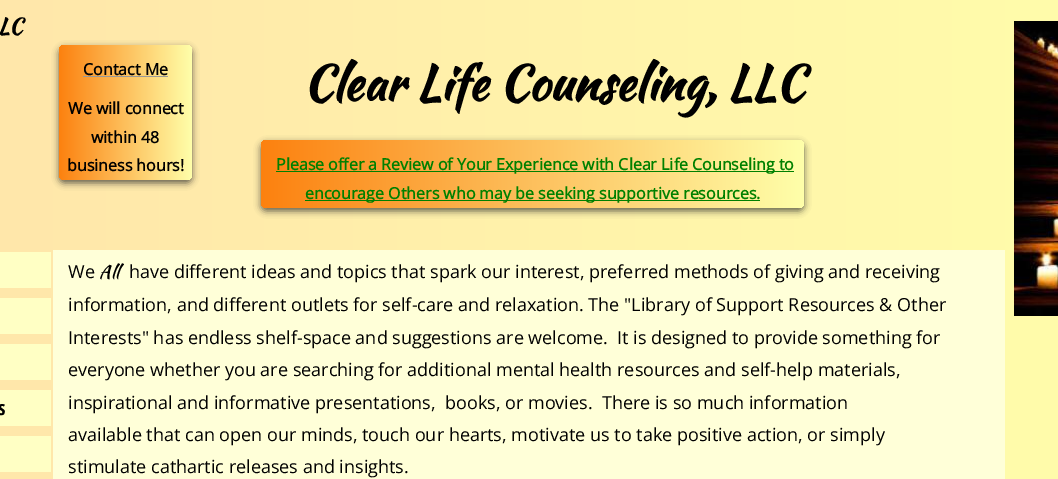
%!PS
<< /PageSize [1058 479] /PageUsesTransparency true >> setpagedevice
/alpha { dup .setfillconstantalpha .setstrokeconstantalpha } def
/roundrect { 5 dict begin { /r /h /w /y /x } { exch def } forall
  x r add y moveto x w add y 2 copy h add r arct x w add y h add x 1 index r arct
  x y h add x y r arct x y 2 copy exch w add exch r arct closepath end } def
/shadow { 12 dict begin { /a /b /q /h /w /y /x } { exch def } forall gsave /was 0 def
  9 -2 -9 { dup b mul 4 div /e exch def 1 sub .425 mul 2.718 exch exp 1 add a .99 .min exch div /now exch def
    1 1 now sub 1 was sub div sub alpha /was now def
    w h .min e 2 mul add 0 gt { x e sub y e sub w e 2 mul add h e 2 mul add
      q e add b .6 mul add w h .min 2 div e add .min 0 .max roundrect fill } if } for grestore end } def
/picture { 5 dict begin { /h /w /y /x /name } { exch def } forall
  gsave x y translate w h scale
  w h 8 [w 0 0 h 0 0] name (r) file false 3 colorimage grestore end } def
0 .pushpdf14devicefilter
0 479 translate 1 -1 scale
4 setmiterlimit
1 setgray
0 0 1058 479 rectfill
gsave newpath 0 0 moveto 1058 0 lineto 1058 479 lineto 0 479 lineto closepath clip newpath
<< /ShadingType 2 /ColorSpace /DeviceRGB /Coords [0 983 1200 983] /Extend [true true] /Function << /FunctionType 2 /Domain [0 1] /C0 [1 0.906 0.667] /C1 [1 1 0.667] /N 1 >> >> shfill grestore
1 1 0.847 setrgbcolor
53 250 952 229 rectfill
/KaushanScript-Bold [22 0 0 -22 0 0] selectfont
0 setgray
-2 34 moveto (LC) show
0.196 setgray
59 48 133 135 5 3.5 0.75 shadow
gsave 59 45 133 135 5 roundrect clip newpath
<< /ShadingType 2 /ColorSpace /DeviceRGB /Coords [59 113 192 113] /Extend [true true] /Function << /FunctionType 2 /Domain [0 1] /C0 [0.988 0.506 0.059] /C1 [1 1 0.667] /N 1 >> >> shfill grestore
/OpenSans-Bold [16 0 0 -16 0 0] selectfont
0 setgray
83 75 moveto (Contact Me) show
0.6 setgray
83 76 85 1 rectfill
0 setgray
68 114 moveto (We will connect) show
91 143 moveto (within 48) show
67 171 moveto (business hours!) show
/KaushanScript-Bold [48 0 0 -48 0 0] selectfont
303 100 moveto (Clear Life Counseling, LLC) show
(img1.rgb) 1014 21 44 295 picture
0.196 setgray
261 143 543 68 5 3.5 0.75 shadow
gsave 261 140 543 68 5 roundrect clip newpath
<< /ShadingType 2 /ColorSpace /DeviceRGB /Coords [261 174 804 174] /Extend [true true] /Function << /FunctionType 2 /Domain [0 1] /C0 [0.988 0.506 0.059] /C1 [1 1 0.667] /N 1 >> >> shfill grestore
0 0.502 0 setrgbcolor
276 171 518 1 rectfill
/OpenSans-Bold [16 0 0 -16 0 0] selectfont
276 170 moveto (Please offer a Review of Your Experience with Clear Life Counseling to) show
305 200 455 1 rectfill
305 199 moveto (encourage Others who may be seeking supportive resources.) show
1 1 0.769 setrgbcolor
0 252 51 36 rectfill
0 298 51 36 rectfill
0 344 51 36 rectfill
0 390 51 36 rectfill
/OpenSansCondensed-Bold [20 0 0 -20 0 0] selectfont
0 setgray
-2 415 moveto (s) show
1 1 0.769 setrgbcolor
0 436 51 36 rectfill
/OpenSans-Regular [18 0 0 -18 0 0] selectfont
0 setgray
68 278 moveto (We) show
/KaushanScript-Regular [18 0 0 -18 0 0] selectfont
99 278 moveto (All) show
/OpenSans-Regular [18 0 0 -18 0 0] selectfont
129 278 moveto (have different ideas and topics that spark our interest, preferred methods of giving and receiving) show
68 311 moveto (information, and different outlets for self-care and relaxation. The "Library of Support Resources & Other) show
68 344 moveto (Interests" has endless shelf-space and suggestions are welcome.  It is designed to provide something for) show
68 376 moveto (everyone whether you are searching for additional mental health resources and self-help materials,) show
68 409 moveto (inspirational and informative presentations,  books, or movies.  There is so much information) show
68 441 moveto (available that can open our minds, touch our hearts, motivate us to take positive action, or simply) show
68 473 moveto (stimulate cathartic releases and insights.) show
.poppdf14devicefilter showpage
